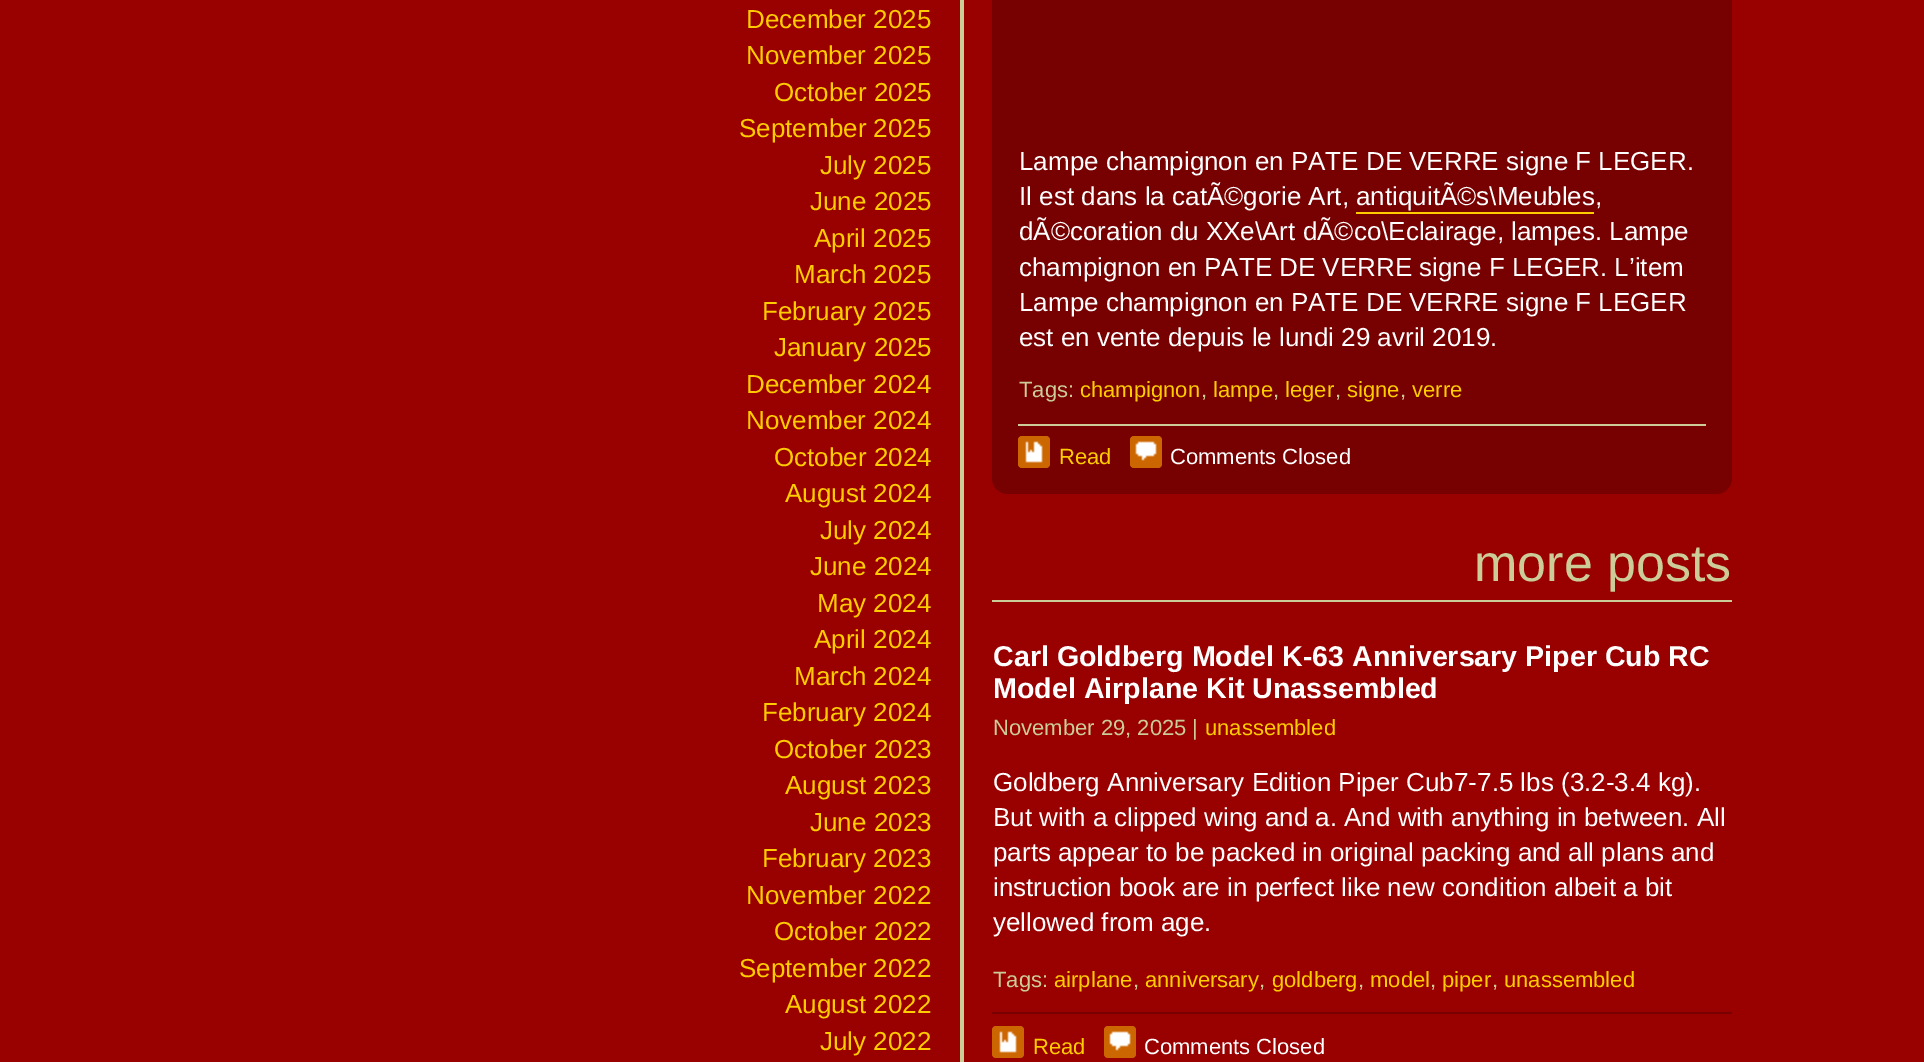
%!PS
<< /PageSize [1924 1062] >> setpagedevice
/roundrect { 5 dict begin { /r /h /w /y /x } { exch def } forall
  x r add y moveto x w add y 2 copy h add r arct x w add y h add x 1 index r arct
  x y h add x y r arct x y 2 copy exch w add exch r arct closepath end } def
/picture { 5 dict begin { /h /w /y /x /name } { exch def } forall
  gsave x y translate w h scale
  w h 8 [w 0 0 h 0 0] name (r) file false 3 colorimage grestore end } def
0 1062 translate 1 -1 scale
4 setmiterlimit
0.6 0 0 setrgbcolor
0 0 1924 1062 rectfill
0.8 0.8 0.6 setrgbcolor
960 0 4 1062 rectfill
/LiberationSans-Regular [26 0 0 -26 0 0] selectfont
1 0.8 0 setrgbcolor
746 28 moveto (December 2025) show
746 64 moveto (November 2025) show
774 101 moveto (October 2025) show
739 137 moveto (September 2025) show
820 174 moveto (July 2025) show
810 210 moveto (June 2025) show
814 247 moveto (April 2025) show
794 283 moveto (March 2025) show
762 320 moveto (February 2025) show
774 356 moveto (January 2025) show
746 393 moveto (December 2024) show
746 429 moveto (November 2024) show
774 466 moveto (October 2024) show
785 502 moveto (August 2024) show
820 539 moveto (July 2024) show
810 575 moveto (June 2024) show
817 612 moveto (May 2024) show
814 648 moveto (April 2024) show
794 685 moveto (March 2024) show
762 721 moveto (February 2024) show
774 758 moveto (October 2023) show
785 794 moveto (August 2023) show
810 831 moveto (June 2023) show
762 867 moveto (February 2023) show
746 904 moveto (November 2022) show
774 940 moveto (October 2022) show
739 977 moveto (September 2022) show
785 1013 moveto (August 2022) show
820 1050 moveto (July 2022) show
0.467 0 0 setrgbcolor
992 -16 740 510 16 roundrect fill
1 setgray
1019 170 moveto (Lampe champignon en PATE DE VERRE signe F LEGER.) show
1019 205 moveto (Il est dans la catÃ©gorie Art, antiquitÃ©s\\Meubles,) show
1 0.8 0 setrgbcolor
1356 212 238 2 rectfill
1 setgray
1019 240 moveto (dÃ©coration du XXe\\Art dÃ©co\\Eclairage, lampes. Lampe) show
1019 276 moveto (champignon en PATE DE VERRE signe F LEGER. L’item) show
1019 311 moveto (Lampe champignon en PATE DE VERRE signe F LEGER) show
1019 346 moveto (est en vente depuis le lundi 29 avril 2019.) show
/LiberationSans-Regular [22 0 0 -22 0 0] selectfont
0.8 0.8 0.6 setrgbcolor
1019 397 moveto (Tags:) show
1 0.8 0 setrgbcolor
1080 397 moveto (champignon) show
0.8 0.8 0.6 setrgbcolor
1201 397 moveto (,) show
1 0.8 0 setrgbcolor
1213 397 moveto (lampe) show
0.8 0.8 0.6 setrgbcolor
1273 397 moveto (,) show
1 0.8 0 setrgbcolor
1285 397 moveto (leger) show
0.8 0.8 0.6 setrgbcolor
1335 397 moveto (,) show
1 0.8 0 setrgbcolor
1347 397 moveto (signe) show
0.8 0.8 0.6 setrgbcolor
1400 397 moveto (,) show
1 0.8 0 setrgbcolor
1412 397 moveto (verre) show
0.8 0.8 0.6 setrgbcolor
1018 424 688 2 rectfill
0.8 0.4 0 setrgbcolor
1018 436 32 32 4 roundrect fill
1130 436 32 32 4 roundrect fill
(img1.rgb) 1025 441 18 22 picture
1 0.8 0 setrgbcolor
1059 464 moveto (Read) show
(img2.rgb) 1135 441 22 20 picture
1 setgray
1170 464 moveto (Comments Closed) show
0.8 0.8 0.6 setrgbcolor
992 600 740 2 rectfill
/LiberationSans-Regular [52 0 0 -52 0 0] selectfont
1474 581 moveto (more posts) show
/LiberationSans-Bold [28.6 0 0 -28.6 0 0] selectfont
1 setgray
993 666 moveto (Carl Goldberg Model K-63 Anniversary Piper Cub RC) show
993 698 moveto (Model Airplane Kit Unassembled) show
/LiberationSans-Regular [22 0 0 -22 0 0] selectfont
0.8 0.8 0.6 setrgbcolor
993 735 moveto (November 29, 2025 |) show
1 0.8 0 setrgbcolor
1205 735 moveto (unassembled) show
/LiberationSans-Regular [26 0 0 -26 0 0] selectfont
1 setgray
993 791 moveto (Goldberg Anniversary Edition Piper Cub7-7.5 lbs \(3.2-3.4 kg\).) show
993 826 moveto (But with a clipped wing and a. And with anything in between. All) show
993 861 moveto (parts appear to be packed in original packing and all plans and) show
993 896 moveto (instruction book are in perfect like new condition albeit a bit) show
993 931 moveto (yellowed from age.) show
/LiberationSans-Regular [22 0 0 -22 0 0] selectfont
0.8 0.8 0.6 setrgbcolor
993 987 moveto (Tags:) show
1 0.8 0 setrgbcolor
1054 987 moveto (airplane) show
0.8 0.8 0.6 setrgbcolor
1133 987 moveto (,) show
1 0.8 0 setrgbcolor
1145 987 moveto (anniversary) show
0.8 0.8 0.6 setrgbcolor
1259 987 moveto (,) show
1 0.8 0 setrgbcolor
1272 987 moveto (goldberg) show
0.8 0.8 0.6 setrgbcolor
1358 987 moveto (,) show
1 0.8 0 setrgbcolor
1370 987 moveto (model) show
0.8 0.8 0.6 setrgbcolor
1430 987 moveto (,) show
1 0.8 0 setrgbcolor
1442 987 moveto (piper) show
0.8 0.8 0.6 setrgbcolor
1492 987 moveto (,) show
1 0.8 0 setrgbcolor
1504 987 moveto (unassembled) show
0.467 0 0 setrgbcolor
992 1012 740 2 rectfill
0.8 0.4 0 setrgbcolor
992 1026 32 32 4 roundrect fill
1104 1026 32 32 4 roundrect fill
(img1.rgb) 999 1031 18 22 picture
1 0.8 0 setrgbcolor
1033 1054 moveto (Read) show
(img2.rgb) 1109 1031 22 20 picture
1 setgray
1144 1054 moveto (Comments Closed) show
showpage
